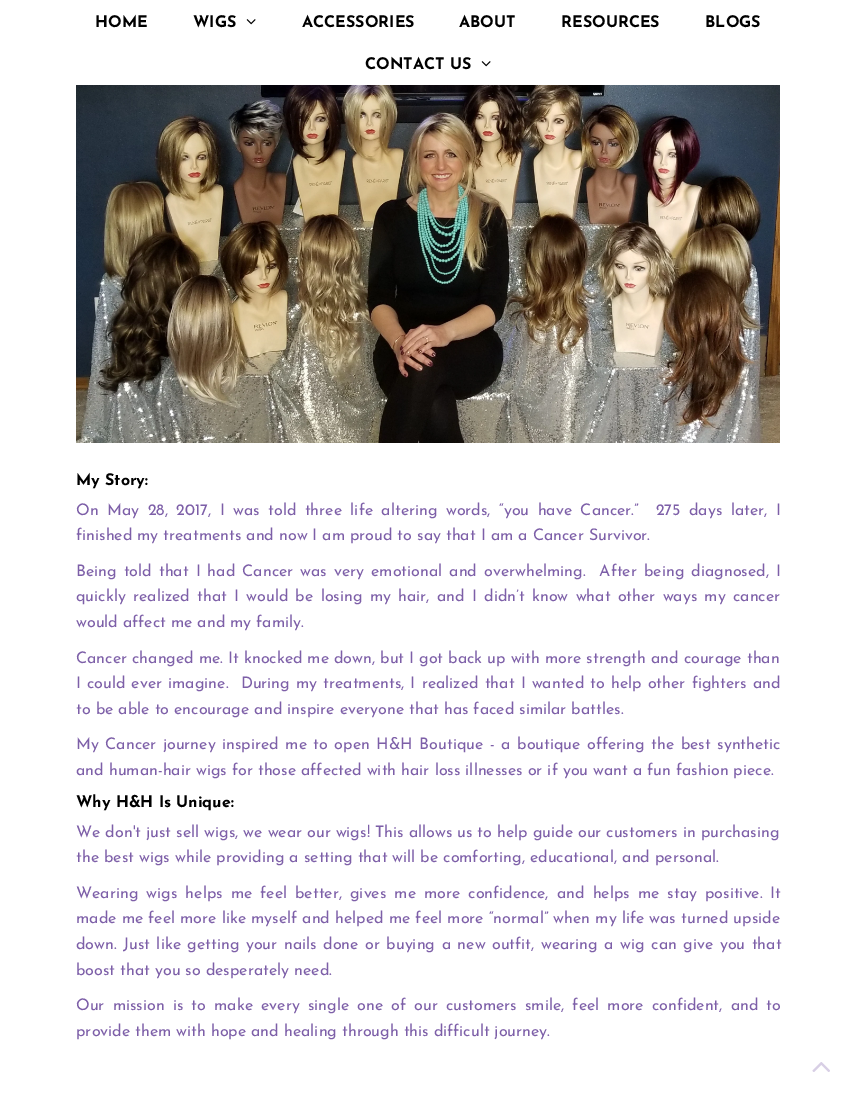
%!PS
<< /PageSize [856 1100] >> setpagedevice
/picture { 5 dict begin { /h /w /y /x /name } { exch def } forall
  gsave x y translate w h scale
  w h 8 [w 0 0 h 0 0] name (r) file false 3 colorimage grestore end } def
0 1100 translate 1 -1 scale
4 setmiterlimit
1 setgray
0 0 856 1100 rectfill
/JosefinSans-Bold [16 0 0 -16 0 0] selectfont
0 setgray
95 27 moveto (HOME) show
193 27 moveto (WIGS) show
(img1.rgb) 246 19 10 6 picture
302 27 moveto (ACCESSORIES) show
459 27 moveto (ABOUT) show
561 27 moveto (RESOURCES) show
705 27 moveto (BLOGS) show
365 69 moveto (CONTACT US) show
(img1.rgb) 481 61 10 6 picture
(img2.rgb) 76 85 704 358 picture
76 485 moveto (My Story:) show
/JosefinSans-Regular [16 0 0 -16 0 0] selectfont
0.49 0.373 0.659 setrgbcolor
76 515 moveto 3.4 0 32 (On May 28, 2017, I was told three life altering words, “you have Cancer.”  275 days later, I) widthshow
76 540 moveto (finished my treatments and now I am proud to say that I am a Cancer Survivor.) show
76 576 moveto 2 0 32 (Being told that I had Cancer was very emotional and overwhelming.  After being diagnosed, I) widthshow
76 601 moveto 2.25 0 32 (quickly realized that I would be losing my hair, and I didn’t know what other ways my cancer) widthshow
76 627 moveto (would affect me and my family.) show
76 663 moveto (Cancer changed me. It knocked me down, but I got back up with more strength and courage than) show
76 688 moveto 1.1 0 32 (I could ever imagine.  During my treatments, I realized that I wanted to help other fighters and) widthshow
76 714 moveto (to be able to encourage and inspire everyone that has faced similar battles.) show
76 749 moveto 1.5 0 32 (My Cancer journey inspired me to open H&H Boutique - a boutique offering the best synthetic) widthshow
76 775 moveto (and human-hair wigs for those affected with hair loss illnesses or if you want a fun fashion piece.) show
/JosefinSans-Bold [16 0 0 -16 0 0] selectfont
0 setgray
76 807 moveto (Why H&H Is Unique:) show
/JosefinSans-Regular [16 0 0 -16 0 0] selectfont
0.49 0.373 0.659 setrgbcolor
76 837 moveto (We don't just sell wigs, we wear our wigs! This allows us to help guide our customers in purchasing) show
76 862 moveto (the best wigs while providing a setting that will be comforting, educational, and personal.) show
76 898 moveto 3 0 32 (Wearing wigs helps me feel better, gives me more confidence, and helps me stay positive. It) widthshow
76 923 moveto 0.1 0 32 (made me feel more like myself and helped me feel more “normal” when my life was turned upside) widthshow
76 949 moveto 1.5 0 32 (down. Just like getting your nails done or buying a new outfit, wearing a wig can give you that) widthshow
76 975 moveto (boost that you so desperately need.) show
76 1010 moveto 3.1 0 32 (Our mission is to make every single one of our customers smile, feel more confident, and to) widthshow
76 1036 moveto (provide them with hope and healing through this difficult journey.) show
(img3.rgb) 812 1062 18 10 picture
showpage
